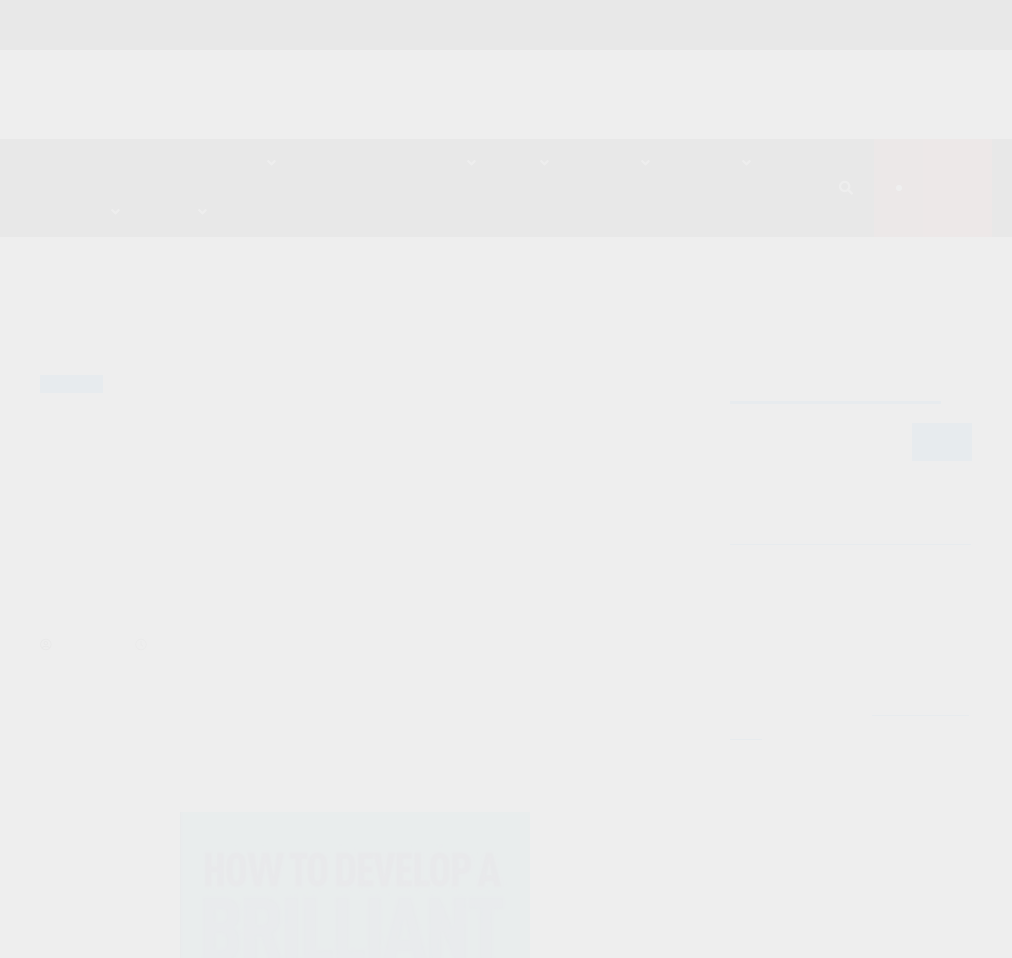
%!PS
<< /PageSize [1012 958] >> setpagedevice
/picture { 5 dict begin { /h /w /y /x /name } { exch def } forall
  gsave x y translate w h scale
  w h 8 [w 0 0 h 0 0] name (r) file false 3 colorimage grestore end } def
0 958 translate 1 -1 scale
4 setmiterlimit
0.933 setgray
0 0 1012 958 rectfill
0.91 setgray
0 0 1012 50 rectfill
0 139 1012 98 rectfill
(img1.rgb) 267 160 9 6 picture
(img1.rgb) 467 160 9 6 picture
(img1.rgb) 540 160 9 6 picture
(img1.rgb) 641 160 9 6 picture
(img1.rgb) 742 160 9 6 picture
(img1.rgb) 111 209 9 6 picture
(img1.rgb) 198 209 9 6 picture
(img2.rgb) 839 180 14 15 picture
0.929 0.91 0.91 setrgbcolor
923 139 69 98 rectfill
0.925 0.91 0.91 setrgbcolor
874 139 49 98 rectfill
0.937 setgray
newpath 899 188 3 0 360 arc closepath fill
0.906 0.922 0.933 setrgbcolor
40 375 63 18 rectfill
(img3.rgb) 40 638 12 13 picture
(img4.rgb) 135 638 12 13 picture
(img5.rgb) 180 812 350 146 picture
730 401 211 3 rectfill
912 423 60 38 rectfill
730 544 241 1 rectfill
872 715 97 1 rectfill
730 739 32 1 rectfill
showpage
